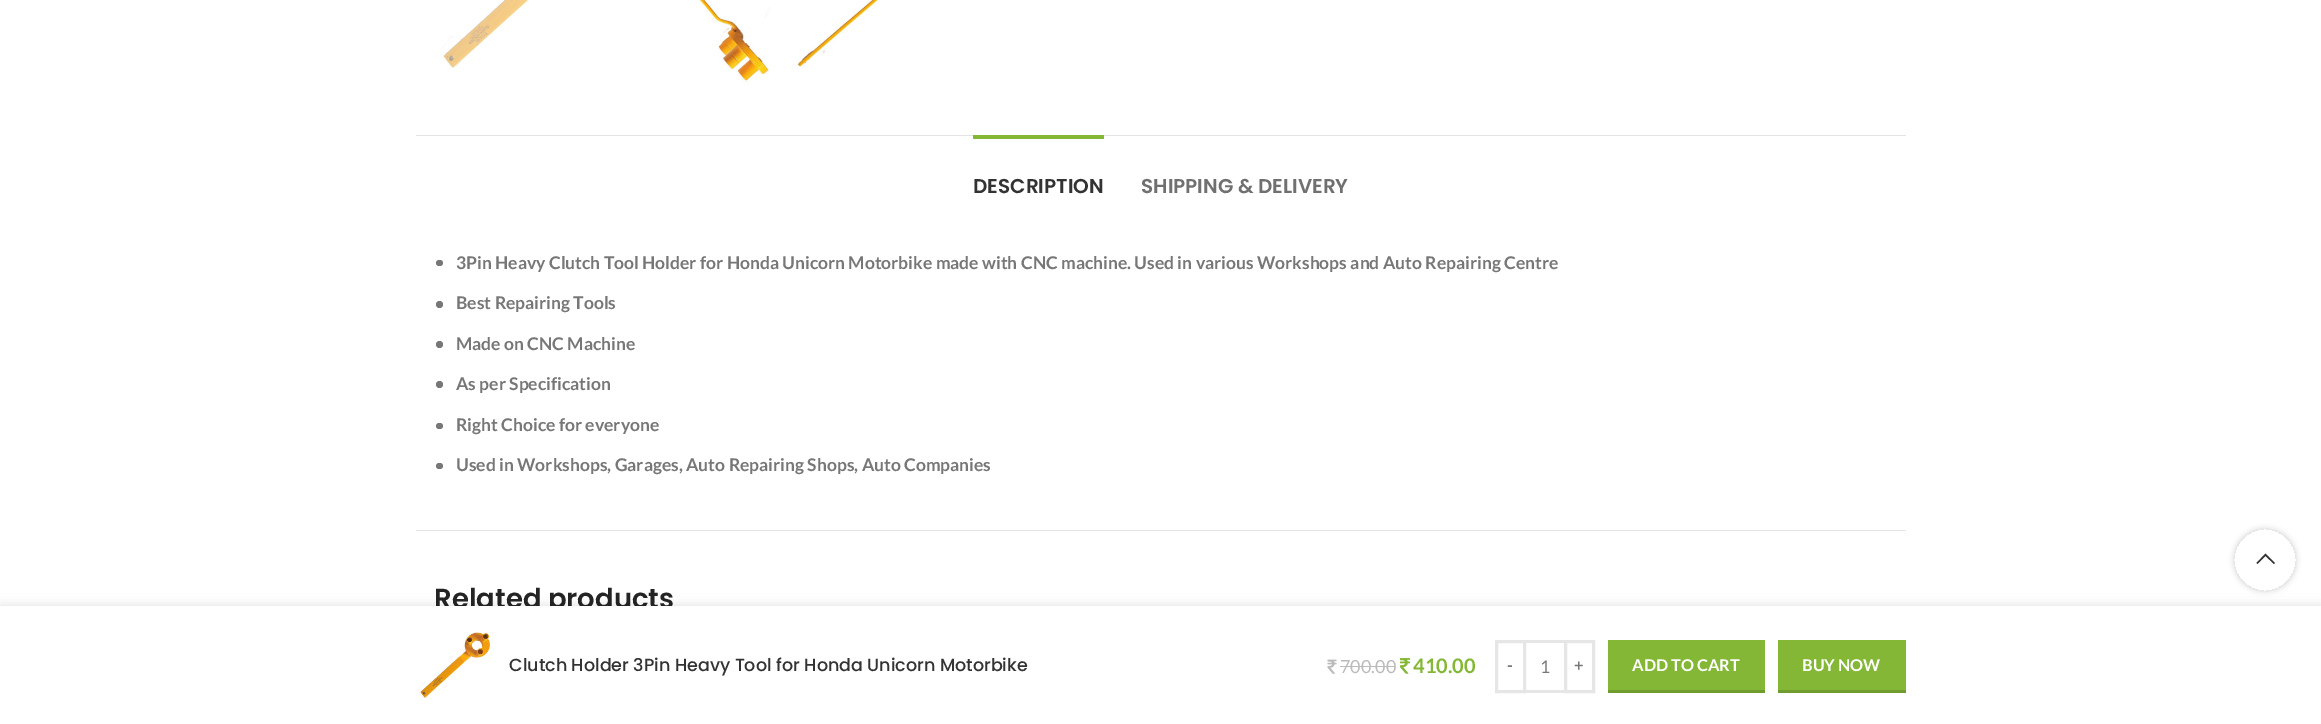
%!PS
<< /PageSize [2321 724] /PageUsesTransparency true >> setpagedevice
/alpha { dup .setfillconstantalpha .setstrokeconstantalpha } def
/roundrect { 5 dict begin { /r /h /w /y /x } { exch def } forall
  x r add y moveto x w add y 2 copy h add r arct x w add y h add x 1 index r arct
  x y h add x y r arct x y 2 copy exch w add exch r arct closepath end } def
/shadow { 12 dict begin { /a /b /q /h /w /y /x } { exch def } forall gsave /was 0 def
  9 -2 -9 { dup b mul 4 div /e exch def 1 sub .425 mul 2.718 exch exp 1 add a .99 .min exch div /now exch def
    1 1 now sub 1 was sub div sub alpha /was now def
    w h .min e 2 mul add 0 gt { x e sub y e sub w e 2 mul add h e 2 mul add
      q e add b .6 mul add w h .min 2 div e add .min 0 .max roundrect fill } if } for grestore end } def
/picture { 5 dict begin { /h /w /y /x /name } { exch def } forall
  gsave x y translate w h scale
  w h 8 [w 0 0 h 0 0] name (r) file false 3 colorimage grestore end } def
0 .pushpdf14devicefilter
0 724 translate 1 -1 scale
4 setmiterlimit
1 setgray
0 0 2321 724 rectfill
(img1.rgb) 441 0 88 68 picture
(img2.rgb) 696 0 75 83 picture
(img3.rgb) 796 0 84 70 picture
0.894 setgray
416 135 1490 1 rectfill
416 530 1490 1 rectfill
0.514 0.718 0.208 setrgbcolor
973 135 131 4 rectfill
/Poppins-SemiBold [20 0 0 -20 0 0] selectfont
0.2 setgray
973 193 moveto (DESCRIPTION) show
0.439 setgray
1141 193 moveto (SHIPPING & DELIVERY) show
0.467 setgray
436 260 7 6 3 roundrect fill
/Lato-Bold [17.5 0 0 -17.5 0 0] selectfont
456 269 moveto (3Pin Heavy Clutch Tool Holder for Honda Unicorn Motorbike made with CNC machine. Used in various Workshops and Auto Repairing Centre) show
newpath 439.5 304.5 3.5 0 360 arc closepath fill
456 309 moveto (Best Repairing Tools) show
newpath 439.5 344.5 3.5 0 360 arc closepath fill
456 350 moveto (Made on CNC Machine) show
newpath 439.5 384.5 3.5 0 360 arc closepath fill
456 390 moveto (As per Specification) show
436 423 7 6 3 roundrect fill
456 431 moveto (Right Choice for everyone) show
436 463 7 6 3 roundrect fill
456 471 moveto (Used in Workshops, Garages, Auto Repairing Shops, Auto Companies) show
/Poppins-SemiBold [27.5 0 0 -27.5 0 0] selectfont
0.141 setgray
434 608 moveto (Related products) show
gsave
newpath 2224 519 moveto 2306 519 lineto 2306 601 lineto 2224 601 lineto closepath 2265 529 moveto 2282 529 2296 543 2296 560 curveto 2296 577 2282 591 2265 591 curveto 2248 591 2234 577 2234 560 curveto 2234 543 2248 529 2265 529 curveto closepath eoclip newpath
0 setgray
2234 529 62 62 31 3 0.17 shadow
grestore
0.2 setgray
newpath 2274 564 moveto 2275 563 lineto 2265.5 553.5 lineto 2256.5 563 lineto 2257.5 564 lineto 2265.5 556 lineto closepath fill
0 setgray
0 606 2321 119 0 5.5 0.12 shadow
1 setgray
0 606 2321 118 rectfill
(img4.rgb) 418 632 72 66 picture
/Poppins-Medium [17.5 0 0 -17.5 0 0] selectfont
0.2 setgray
509 671 moveto (Clutch Holder 3Pin Heavy Tool for Honda Unicorn Motorbike) show
(img5.rgb) 1327 659 10 15 picture
/Lato-Regular [18 0 0 -18 0 0] selectfont
0.733 setgray
1340 673 moveto (700.00) show
1340 666 55 1 rectfill
(img6.rgb) 1400 658 11 16 picture
/Lato-Bold [20 0 0 -20 0 0] selectfont
0.514 0.718 0.208 setrgbcolor
1413 673 moveto (410.00) show
0.902 setgray
3 setlinewidth
1496.5 641.5 28 50 rectstroke
/Lato-Bold [16.25 0 0 -16.25 0 0] selectfont
0.467 setgray
1507 671 moveto (-) show
0.902 setgray
1526 640 38 3 rectfill
1526 690 38 3 rectfill
/Lato-Regular [17.5 0 0 -17.5 0 0] selectfont
0.467 setgray
1540 673 moveto (1) show
0.902 setgray
1565.5 641.5 28 50 rectstroke
/Lato-Bold [16.25 0 0 -16.25 0 0] selectfont
0.467 setgray
1574 671 moveto (+) show
0.514 0.718 0.208 setrgbcolor
1608 640 157 50 rectfill
0.435 0.612 0.176 setrgbcolor
1608 690 157 3 rectfill
1 setgray
1632 671 moveto (ADD TO CART) show
0.514 0.718 0.208 setrgbcolor
1778 640 128 50 rectfill
0.435 0.612 0.176 setrgbcolor
1778 690 128 3 rectfill
1 setgray
1802 671 moveto (BUY NOW) show
.poppdf14devicefilter showpage
